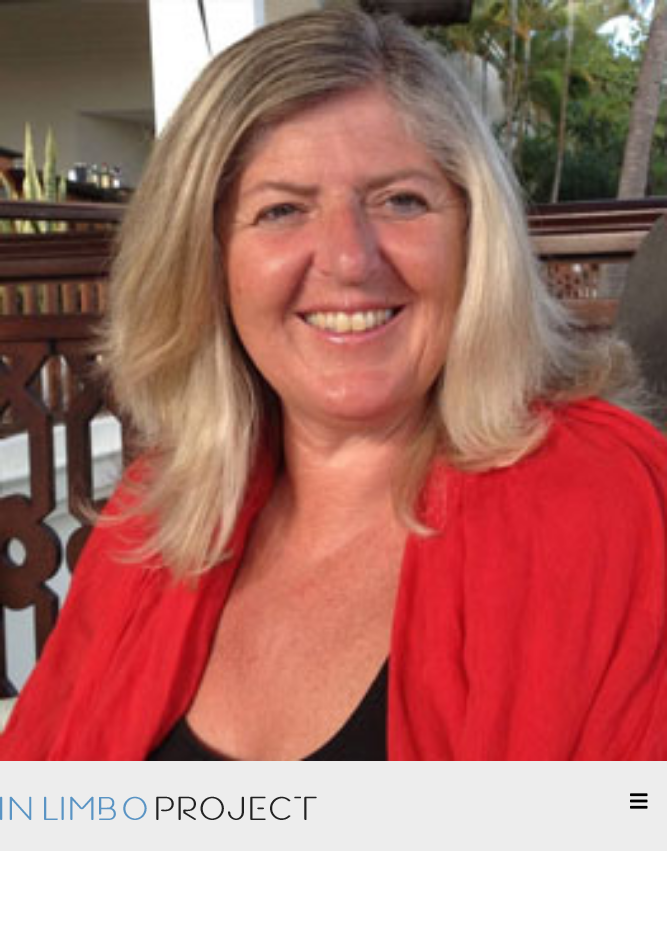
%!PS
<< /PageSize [667 933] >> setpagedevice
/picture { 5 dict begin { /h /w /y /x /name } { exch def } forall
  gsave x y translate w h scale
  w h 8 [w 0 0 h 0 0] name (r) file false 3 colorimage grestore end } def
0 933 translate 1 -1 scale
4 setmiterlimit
1 setgray
0 0 667 933 rectfill
(img1.rgb) 0 0 667 761 picture
0.929 setgray
0 761 667 90 rectfill
(img2.rgb) 0 796 317 24 picture
(img3.rgb) 630 793 18 16 picture
showpage
